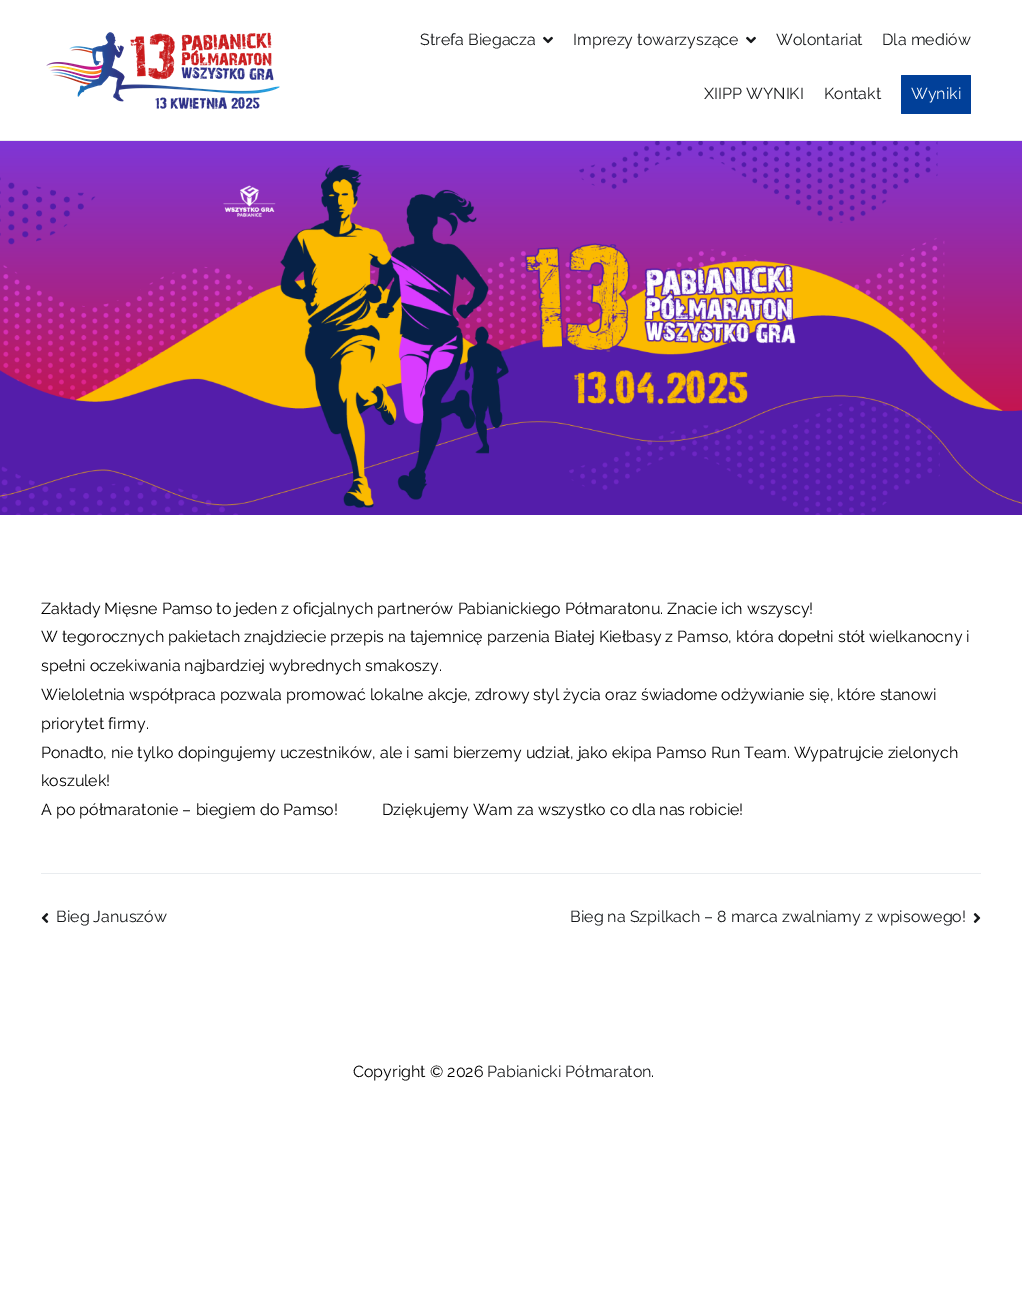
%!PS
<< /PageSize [1022 1306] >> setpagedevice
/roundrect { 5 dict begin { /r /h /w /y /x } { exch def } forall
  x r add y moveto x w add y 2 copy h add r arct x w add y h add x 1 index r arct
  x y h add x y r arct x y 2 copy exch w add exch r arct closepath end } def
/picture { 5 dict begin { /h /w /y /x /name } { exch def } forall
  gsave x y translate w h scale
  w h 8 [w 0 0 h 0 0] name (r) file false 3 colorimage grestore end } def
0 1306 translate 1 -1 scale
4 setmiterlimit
1 setgray
0 0 1022 1306 rectfill
0.914 0.925 0.937 setrgbcolor
0 140 1022 1 rectfill
(img1.rgb) 46 32 234 78 picture
/Raleway-Thin [16 0 0 -16 0 0] selectfont
0.086 0.094 0.102 setrgbcolor
420 45 moveto (Strefa Biegacza) show
(img2.rgb) 543 36 10 8 picture
573 45 moveto (Imprezy towarzyszące) show
(img2.rgb) 746 36 10 8 picture
776 45 moveto (Wolontariat) show
882 45 moveto (Dla mediów) show
704 99 moveto (XIIPP WYNIKI) show
824 99 moveto (Kontakt) show
0.004 0.251 0.6 setrgbcolor
901 75 70 39 1 roundrect fill
1 setgray
911 99 moveto (Wyniki) show
(img3.rgb) 0 141 1022 374 picture
0 setgray
41 614 moveto (Zakłady Mięsne Pamso to jeden z oficjalnych partnerów Pabianickiego Półmaratonu. Znacie ich wszyscy!) show
41 642 moveto (W tegorocznych pakietach znajdziecie przepis na tajemnicę parzenia Białej Kiełbasy z Pamso, która dopełni stół wielkanocny i) show
41 671 moveto (spełni oczekiwania najbardziej wybrednych smakoszy.) show
41 700 moveto (Wieloletnia współpraca pozwala promować lokalne akcje, zdrowy styl życia oraz świadome odżywianie się, które stanowi) show
41 729 moveto (priorytet firmy.) show
41 758 moveto (Ponadto, nie tylko dopingujemy uczestników, ale i sami bierzemy udział, jako ekipa Pamso Run Team. Wypatrujcie zielonych) show
41 786 moveto (koszulek!) show
41 815 moveto (A po półmaratonie – biegiem do Pamso!) show
382 815 moveto (Dziękujemy Wam za wszystko co dla nas robicie!) show
0.914 0.925 0.937 setrgbcolor
41 873 940 1 rectfill
(img4.rgb) 41 913 8 10 picture
0.086 0.094 0.102 setrgbcolor
56 922 moveto (Bieg Januszów) show
570 922 moveto (Bieg na Szpilkach – 8 marca zwalniamy z wpisowego!) show
(img5.rgb) 973 913 8 10 picture
0 setgray
353 1077 moveto (Copyright © 2026) show
0.086 0.094 0.102 setrgbcolor
487 1077 moveto (Pabianicki Półmaraton) show
0 setgray
651 1077 moveto (.) show
showpage
